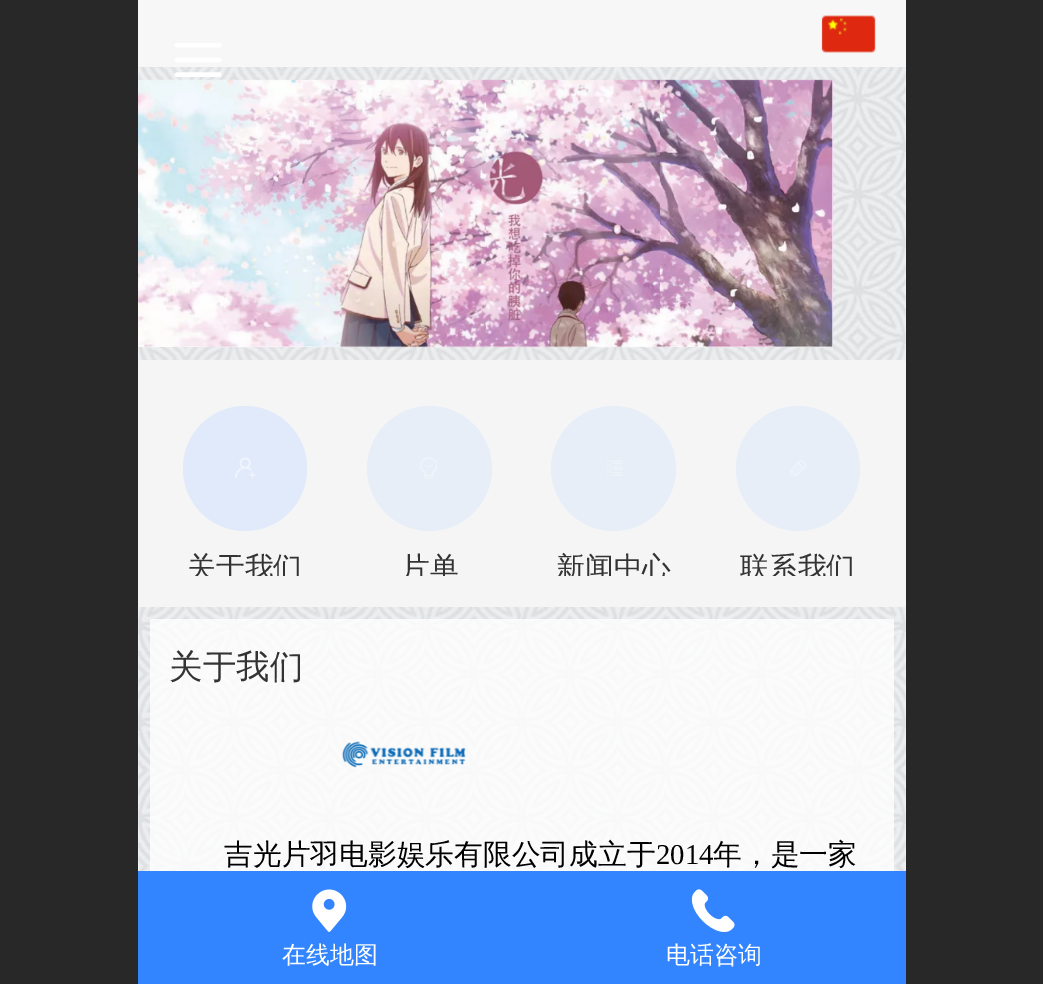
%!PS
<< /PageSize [1043 984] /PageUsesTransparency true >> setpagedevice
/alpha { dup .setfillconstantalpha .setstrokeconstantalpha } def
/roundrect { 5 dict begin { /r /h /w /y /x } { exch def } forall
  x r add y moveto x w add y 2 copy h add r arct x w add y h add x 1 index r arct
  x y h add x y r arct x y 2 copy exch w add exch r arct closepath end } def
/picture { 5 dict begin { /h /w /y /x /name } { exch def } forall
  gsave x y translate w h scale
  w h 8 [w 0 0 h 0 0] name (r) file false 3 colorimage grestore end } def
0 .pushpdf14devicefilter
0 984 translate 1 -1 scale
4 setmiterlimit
1 setgray
0 0 1043 984 rectfill
0.157 setgray
0 0 138 984 rectfill
0.969 setgray
138 0 768 67 rectfill
(img1.rgb) 821 15 55 38 picture
(img7.rgb) 138 67 768 804 picture
(img2.rgb) 138 79 174 268 picture
(img3.rgb) 312 79 174 269 picture
(img4.rgb) 486 79 174 269 picture
(img5.rgb) 660 79 173 268 picture
(img6.rgb) 174 43 48 34 picture
0.961 setgray
138 360 768 247 2.5 roundrect fill
0.878 0.918 0.98 setrgbcolor
183 406 124 125 62 roundrect fill
(img8.rgb) 235 457 21 21 picture
gsave
153 406 184 170 rectclip
/WenQuanYiZenHei-Medium [28.75 0 0 -28.75 0 0] selectfont
0.2 setgray
187 577 moveto (关于我们) show
grestore
0.91 0.933 0.973 setrgbcolor
newpath 429.5 468.5 62.5 0 360 arc closepath fill
(img9.rgb) 420 457 17 22 picture
gsave
337 406 184 170 rectclip
/WenQuanYiZenHei-Medium [28.75 0 0 -28.75 0 0] selectfont
0.2 setgray
401 577 moveto (片单) show
grestore
newpath 613.5 468.5 62.5 0 360 arc closepath fill
(img10.rgb) 607 460 16 16 picture
gsave
521 406 185 170 rectclip
/WenQuanYiZenHei-Medium [28.75 0 0 -28.75 0 0] selectfont
0.2 setgray
556 577 moveto (新闻中心) show
grestore
736 406 124 125 62 roundrect fill
(img11.rgb) 790 460 16 16 picture
gsave
706 406 184 170 rectclip
/WenQuanYiZenHei-Medium [28.75 0 0 -28.75 0 0] selectfont
0.2 setgray
740 577 moveto (联系我们) show
grestore
0.8 alpha
1 setgray
newpath 152.5 619 moveto 891.5 619 lineto 893 619 894 620 894 621.5 curveto 894 715 lineto 150 715 lineto 150 621.5 lineto 150 620 151 619 152.5 619 curveto closepath fill
/WenQuanYiZenHei-Medium [33.5 0 0 -33.5 0 0] selectfont
1 alpha
0.2 setgray
169 678 moveto (关于我们) show
0.8 alpha
1 setgray
150 715 744 156 rectfill
1 alpha
(img12.rgb) 342 741 124 27 picture
/WenQuanYiZenHei-Medium [28.75 0 0 -28.75 0 0] selectfont
0 setgray
224 864 moveto (吉光片羽电影娱乐有限公司成立于) show
/LiberationSerif-Regular [28.75 0 0 -28.75 0 0] selectfont
656 864 moveto (2014) show
/WenQuanYiZenHei-Medium [28.75 0 0 -28.75 0 0] selectfont
713 864 moveto (年，是一家) show
0.196 0.522 1 setrgbcolor
138 871 768 113 rectfill
(img13.rgb) 312 889 35 43 picture
/WenQuanYiZenHei-Medium [24 0 0 -24 0 0] selectfont
1 setgray
282 963 moveto (在线地图) show
(img14.rgb) 691 889 44 43 picture
666 963 moveto (电话咨询) show
0.157 setgray
906 0 137 984 rectfill
.poppdf14devicefilter showpage
